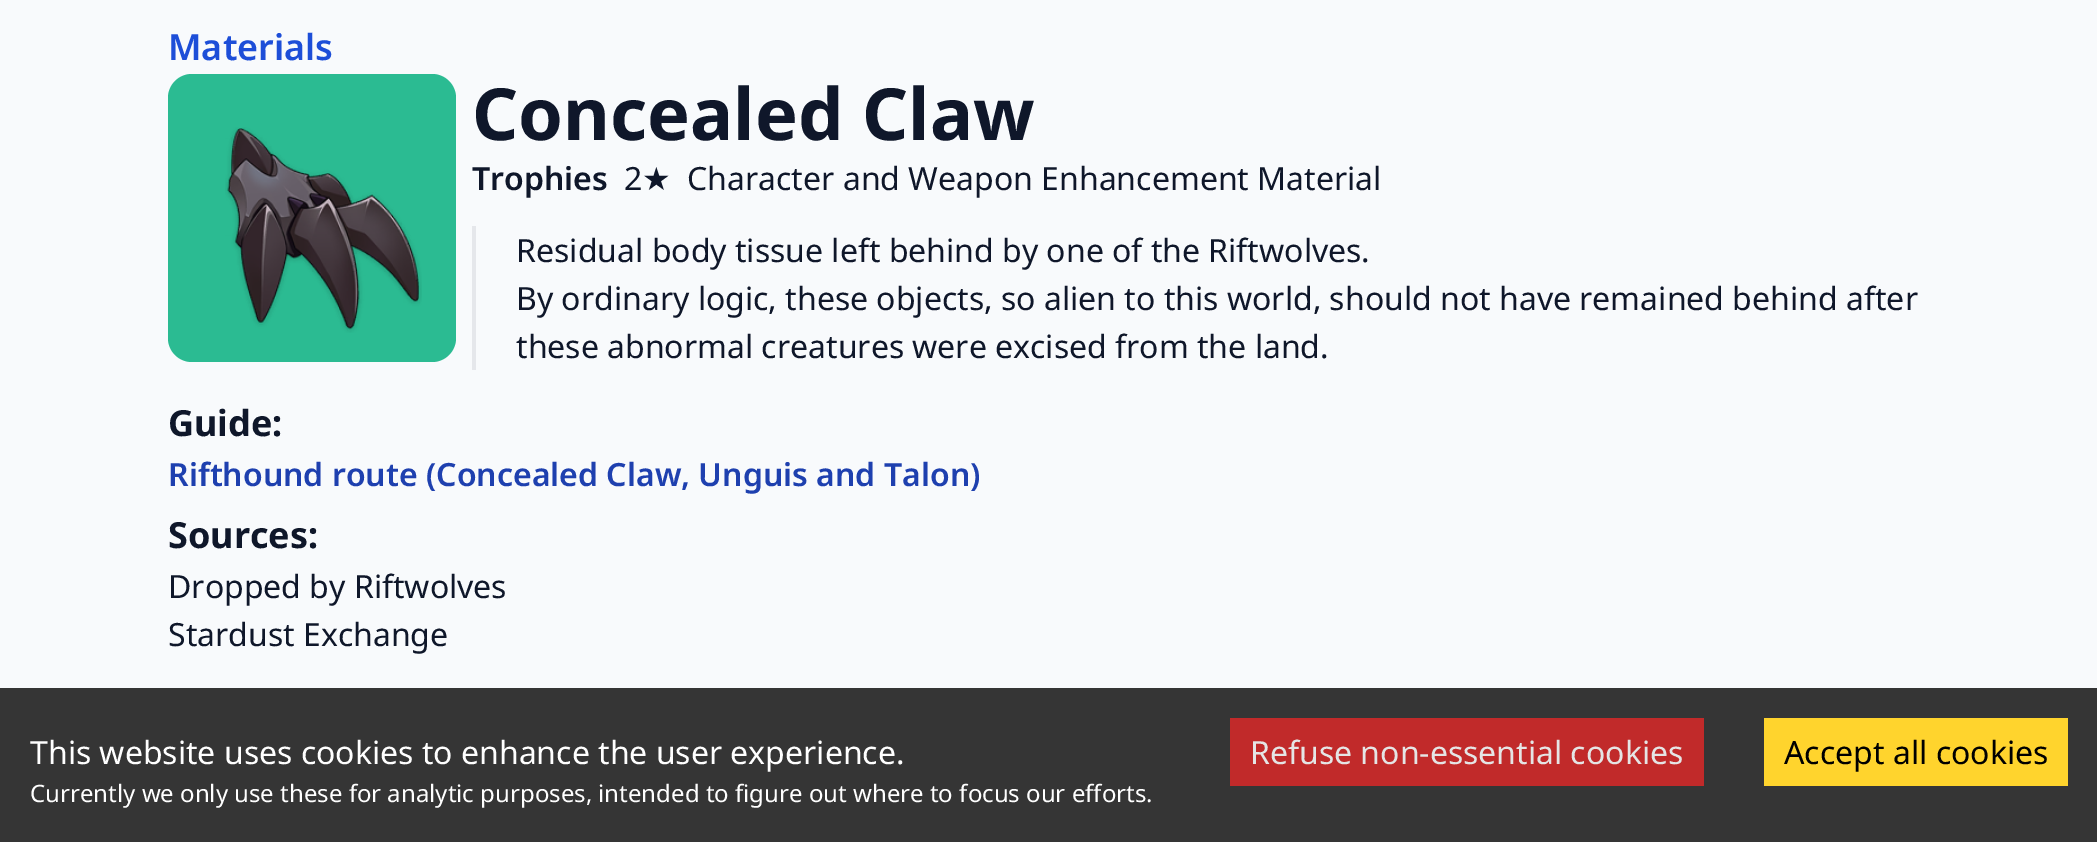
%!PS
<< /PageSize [2097 842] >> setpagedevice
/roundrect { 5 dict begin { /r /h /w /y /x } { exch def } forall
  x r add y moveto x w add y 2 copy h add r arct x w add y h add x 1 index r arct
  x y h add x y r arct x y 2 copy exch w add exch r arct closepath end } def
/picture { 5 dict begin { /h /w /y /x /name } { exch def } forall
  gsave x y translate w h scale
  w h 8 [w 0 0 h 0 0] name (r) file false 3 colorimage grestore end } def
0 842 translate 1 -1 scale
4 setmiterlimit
0.973 0.98 0.988 setrgbcolor
0 0 2097 842 rectfill
/NotoSans-SemiBold [36 0 0 -36 0 0] selectfont
0.114 0.306 0.847 setrgbcolor
168 60 moveto (Materials) show
0.169 0.733 0.573 setrgbcolor
168 74 288 288 24 roundrect fill
(img1.rgb) 225 127 197 206 picture
/NotoSans-Bold [72 0 0 -72 0 0] selectfont
0.059 0.09 0.165 setrgbcolor
472 140 moveto (Concealed Claw) show
/NotoSans-SemiBold [32 0 0 -32 0 0] selectfont
472 190 moveto (Trophies) show
/NotoSans-Regular [32 0 0 -32 0 0] selectfont
624 190 moveto (2) show
/DejaVuSans-Regular [32 0 0 -32 0 0] selectfont
642 190 moveto (★) show
/NotoSans-Regular [32 0 0 -32 0 0] selectfont
687 190 moveto (Character and Weapon Enhancement Material) show
0.898 0.906 0.922 setrgbcolor
472 226 4 144 rectfill
0.059 0.09 0.165 setrgbcolor
516 262 moveto (Residual body tissue left behind by one of the Riftwolves.) show
516 310 moveto (By ordinary logic, these objects, so alien to this world, should not have remained behind after) show
516 358 moveto (these abnormal creatures were excised from the land.) show
/NotoSans-Bold [36 0 0 -36 0 0] selectfont
168 436 moveto (Guide:) show
/NotoSans-SemiBold [32 0 0 -32 0 0] selectfont
0.118 0.251 0.686 setrgbcolor
168 486 moveto (Rifthound route \(Concealed Claw, Unguis and Talon\)) show
/NotoSans-Bold [36 0 0 -36 0 0] selectfont
0.059 0.09 0.165 setrgbcolor
168 548 moveto (Sources:) show
/NotoSans-Regular [32 0 0 -32 0 0] selectfont
168 598 moveto (Dropped by Riftwolves) show
168 646 moveto (Stardust Exchange) show
0.208 setgray
0 688 2097 154 rectfill
1 setgray
30 764 moveto (This website uses cookies to enhance the user experience.) show
/NotoSans-Regular [24 0 0 -24 0 0] selectfont
30 802 moveto (Currently we only use these for analytic purposes, intended to figure out where to focus our efforts.) show
0.757 0.165 0.165 setrgbcolor
1230 718 474 68 rectfill
/NotoSans-Regular [32 0 0 -32 0 0] selectfont
0.898 setgray
1250 764 moveto (Refuse non-essential cookies) show
1 0.831 0.176 setrgbcolor
1764 718 304 68 rectfill
0 setgray
1784 764 moveto (Accept all cookies) show
showpage
